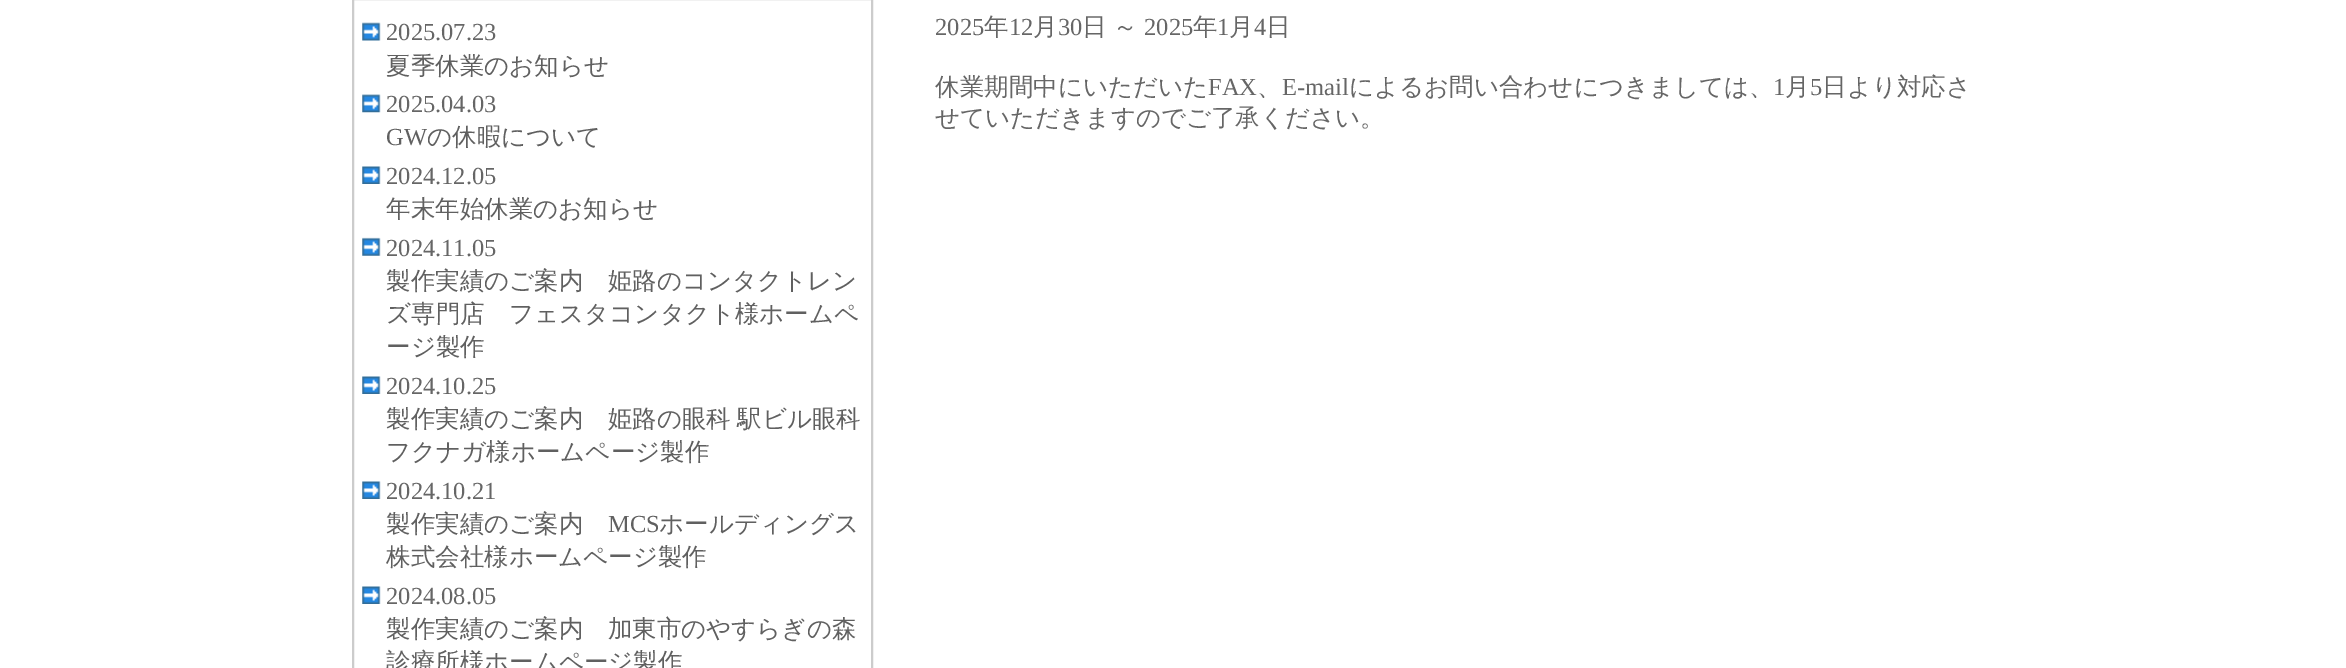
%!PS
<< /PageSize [2346 668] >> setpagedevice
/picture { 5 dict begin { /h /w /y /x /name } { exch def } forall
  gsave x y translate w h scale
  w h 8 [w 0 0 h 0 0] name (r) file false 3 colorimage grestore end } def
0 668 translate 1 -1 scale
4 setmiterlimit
1 setgray
0 0 2346 668 rectfill
0.8 setgray
2 setlinewidth
353 -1 519 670 rectstroke
(img1.rgb) 362 22 19 19 picture
/LiberationSerif-Regular [24.5 0 0 -24.5 0 0] selectfont
0.4 setgray
386 40 moveto (2025.07.23) show
/WenQuanYiZenHei-Medium [24.5 0 0 -24.5 0 0] selectfont
0.376 setgray
386 74 moveto (夏季休業のお知らせ) show
(img2.rgb) 362 94 19 19 picture
/LiberationSerif-Regular [24.5 0 0 -24.5 0 0] selectfont
0.4 setgray
386 112 moveto (2025.04.03) show
0.376 setgray
386 145 moveto (GW) show
/WenQuanYiZenHei-Medium [24.5 0 0 -24.5 0 0] selectfont
427 145 moveto (の休暇について) show
(img3.rgb) 362 166 19 18 picture
/LiberationSerif-Regular [24.5 0 0 -24.5 0 0] selectfont
0.4 setgray
386 184 moveto (2024.12.05) show
/WenQuanYiZenHei-Medium [24.5 0 0 -24.5 0 0] selectfont
0.376 setgray
386 217 moveto (年末年始休業のお知らせ) show
(img4.rgb) 362 237 19 19 picture
/LiberationSerif-Regular [24.5 0 0 -24.5 0 0] selectfont
0.4 setgray
386 256 moveto (2024.11.05) show
/WenQuanYiZenHei-Medium [24.5 0 0 -24.5 0 0] selectfont
0.376 setgray
386 289 moveto (製作実績のご案内　姫路のコンタクトレン) show
386 322 moveto (ズ専門店　フェスタコンタクト様ホームペ) show
386 355 moveto (ージ製作) show
(img3.rgb) 362 376 19 18 picture
/LiberationSerif-Regular [24.5 0 0 -24.5 0 0] selectfont
0.4 setgray
386 394 moveto (2024.10.25) show
/WenQuanYiZenHei-Medium [24.5 0 0 -24.5 0 0] selectfont
0.376 setgray
386 427 moveto -1 0 32 (製作実績のご案内　姫路の眼科 駅ビル眼科) widthshow
386 460 moveto (フクナガ様ホームページ製作) show
(img3.rgb) 362 481 19 18 picture
/LiberationSerif-Regular [24.5 0 0 -24.5 0 0] selectfont
0.4 setgray
386 499 moveto (2024.10.21) show
/WenQuanYiZenHei-Medium [24.5 0 0 -24.5 0 0] selectfont
0.376 setgray
386 532 moveto (製作実績のご案内) show
/LiberationSerif-Regular [24.5 0 0 -24.5 0 0] selectfont
608 532 moveto (MCS) show
/WenQuanYiZenHei-Medium [24.5 0 0 -24.5 0 0] selectfont
659 532 moveto (ホールディングス) show
386 565 moveto (株式会社様ホームページ製作) show
(img3.rgb) 362 586 19 18 picture
/LiberationSerif-Regular [24.5 0 0 -24.5 0 0] selectfont
0.4 setgray
386 604 moveto (2024.08.05) show
/WenQuanYiZenHei-Medium [24.5 0 0 -24.5 0 0] selectfont
0.376 setgray
386 637 moveto (製作実績のご案内　加東市のやすらぎの森) show
386 670 moveto (診療所様ホームページ製作) show
/LiberationSerif-Regular [24.5 0 0 -24.5 0 0] selectfont
0.4 setgray
935 35 moveto (2025) show
/WenQuanYiZenHei-Medium [24.5 0 0 -24.5 0 0] selectfont
984 35 moveto (年) show
/LiberationSerif-Regular [24.5 0 0 -24.5 0 0] selectfont
1009 35 moveto (12) show
/WenQuanYiZenHei-Medium [24.5 0 0 -24.5 0 0] selectfont
1033 35 moveto (月) show
/LiberationSerif-Regular [24.5 0 0 -24.5 0 0] selectfont
1058 35 moveto (30) show
/WenQuanYiZenHei-Medium [24.5 0 0 -24.5 0 0] selectfont
1082 35 moveto -1 0 32 (日 ～) widthshow
/LiberationSerif-Regular [24.5 0 0 -24.5 0 0] selectfont
1144 35 moveto (2025) show
/WenQuanYiZenHei-Medium [24.5 0 0 -24.5 0 0] selectfont
1193 35 moveto (年) show
/LiberationSerif-Regular [24.5 0 0 -24.5 0 0] selectfont
1217 35 moveto (1) show
/WenQuanYiZenHei-Medium [24.5 0 0 -24.5 0 0] selectfont
1229 35 moveto (月) show
/LiberationSerif-Regular [24.5 0 0 -24.5 0 0] selectfont
1254 35 moveto (4) show
/WenQuanYiZenHei-Medium [24.5 0 0 -24.5 0 0] selectfont
1266 35 moveto (日) show
935 95 moveto (休業期間中にいただいた) show
/LiberationSerif-Regular [24.5 0 0 -24.5 0 0] selectfont
1208 95 moveto (FAX) show
/WenQuanYiZenHei-Medium [24.5 0 0 -24.5 0 0] selectfont
1257 95 moveto (、) show
/LiberationSerif-Regular [24.5 0 0 -24.5 0 0] selectfont
1282 95 moveto (E-mail) show
/WenQuanYiZenHei-Medium [24.5 0 0 -24.5 0 0] selectfont
1349 95 moveto (によるお問い合わせにつきましては、) show
/LiberationSerif-Regular [24.5 0 0 -24.5 0 0] selectfont
1773 95 moveto (1) show
/WenQuanYiZenHei-Medium [24.5 0 0 -24.5 0 0] selectfont
1785 95 moveto (月) show
/LiberationSerif-Regular [24.5 0 0 -24.5 0 0] selectfont
1810 95 moveto (5) show
/WenQuanYiZenHei-Medium [24.5 0 0 -24.5 0 0] selectfont
1822 95 moveto (日より対応さ) show
935 126 moveto (せていただきますのでご了承ください。) show
showpage
